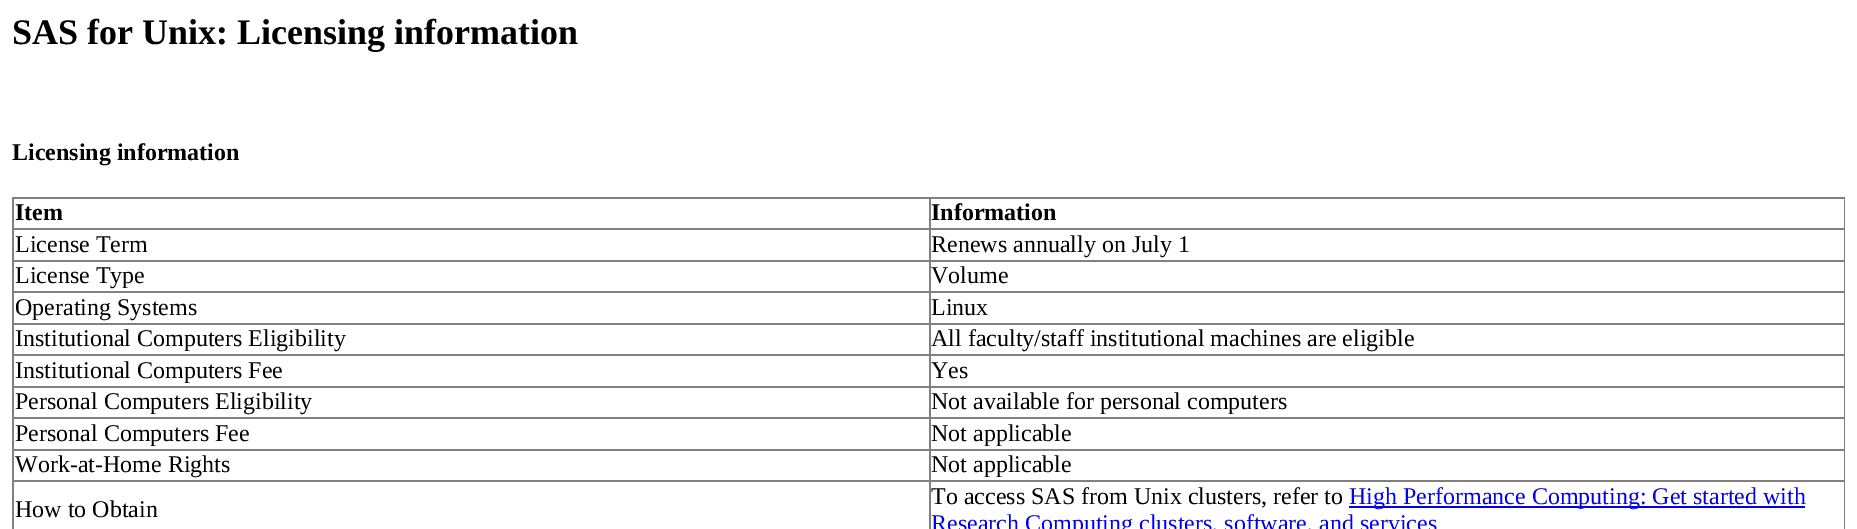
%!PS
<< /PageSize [1857 529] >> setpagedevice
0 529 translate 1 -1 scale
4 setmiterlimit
1 setgray
0 0 1857 529 rectfill
/LiberationSerif-Bold [36 0 0 -36 0 0] selectfont
0 setgray
12 44 moveto (SAS for Unix: Licensing information) show
/LiberationSerif-Bold [24 0 0 -24 0 0] selectfont
12 160 moveto (Licensing information) show
0.502 setgray
12 197 1833 2 rectfill
1844 197 1 332 rectfill
12 197 2 332 rectfill
0 setgray
15 220 moveto (Item) show
0.502 setgray
929 228 916 2 rectfill
929 260 916 2 rectfill
929 291 916 2 rectfill
929 323 916 2 rectfill
929 354 916 2 rectfill
929 386 916 2 rectfill
929 417 916 2 rectfill
929 449 916 2 rectfill
929 480 916 2 rectfill
929 480 2 49 rectfill
12 480 918 2 rectfill
929 449 2 33 rectfill
12 449 918 2 rectfill
929 417 2 33 rectfill
12 417 918 2 rectfill
929 386 2 33 rectfill
12 386 918 2 rectfill
929 354 2 33 rectfill
12 354 918 2 rectfill
929 323 2 33 rectfill
12 323 918 2 rectfill
929 291 2 33 rectfill
12 291 918 2 rectfill
929 260 2 33 rectfill
12 260 918 2 rectfill
929 228 2 33 rectfill
12 228 918 2 rectfill
929 197 2 33 rectfill
0 setgray
931 220 moveto (Information) show
/LiberationSerif-Regular [24 0 0 -24 0 0] selectfont
15 252 moveto (License Term) show
931 252 moveto (Renews annually on July 1) show
15 283 moveto (License Type) show
931 283 moveto (Volume) show
15 315 moveto (Operating Systems) show
931 315 moveto (Linux) show
15 346 moveto (Institutional Computers Eligibility) show
931 346 moveto (All faculty/staff institutional machines are eligible) show
15 378 moveto (Institutional Computers Fee) show
931 378 moveto (Yes) show
15 409 moveto (Personal Computers Eligibility) show
931 409 moveto (Not available for personal computers) show
15 441 moveto (Personal Computers Fee) show
931 441 moveto (Not applicable) show
15 472 moveto (Work-at-Home Rights) show
931 472 moveto (Not applicable) show
15 517 moveto (How to Obtain) show
931 504 moveto (To access SAS from Unix clusters, refer to) show
0 0 0.933 setrgbcolor
1349 506 456 2 rectfill
1349 504 moveto (High Performance Computing: Get started with) show
931 531 moveto (Research Computing clusters, software, and services) show
showpage
